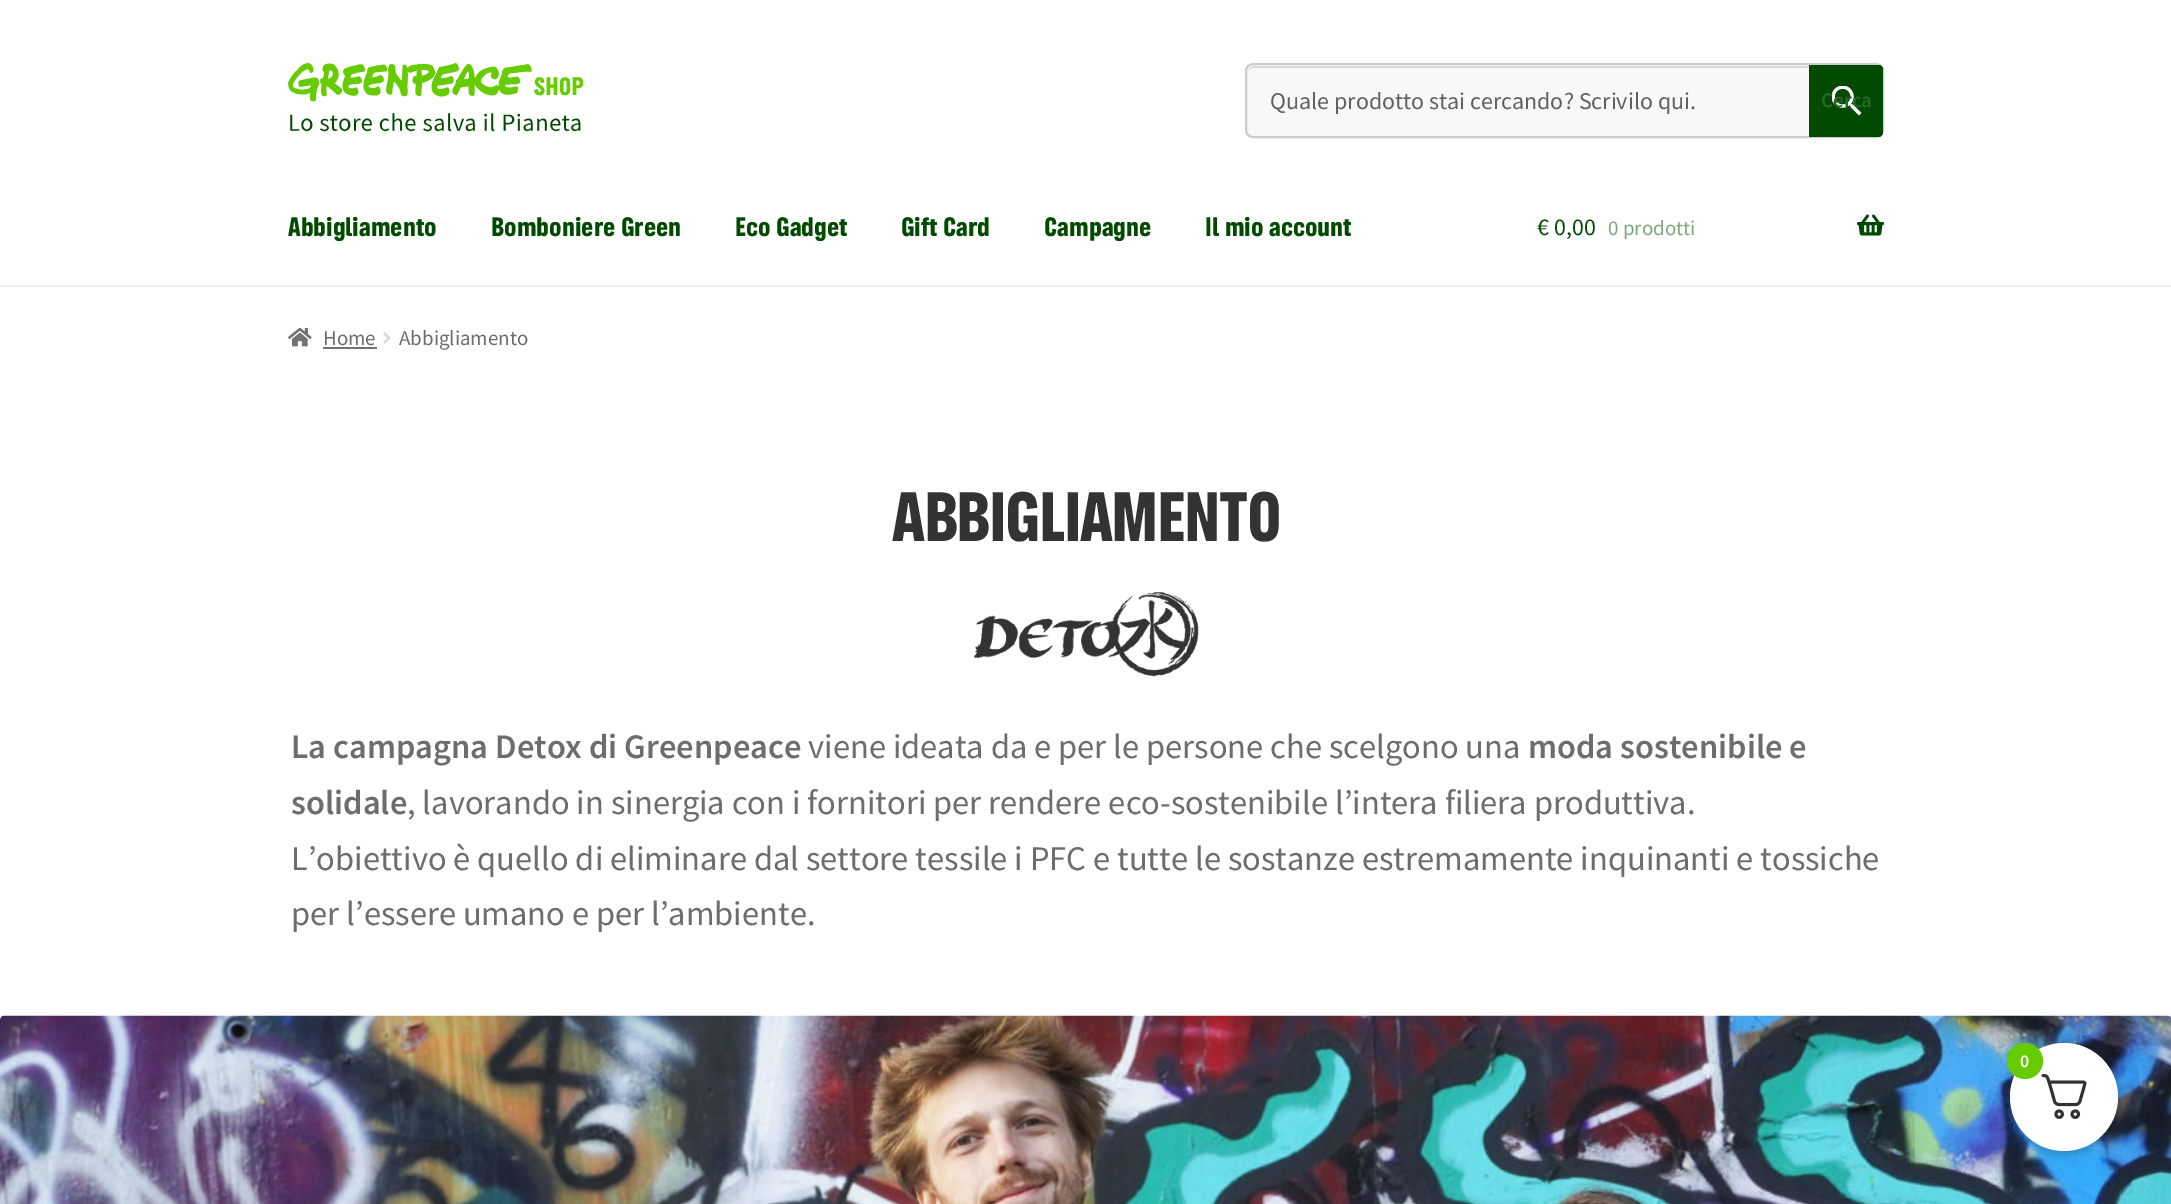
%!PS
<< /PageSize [2171 1204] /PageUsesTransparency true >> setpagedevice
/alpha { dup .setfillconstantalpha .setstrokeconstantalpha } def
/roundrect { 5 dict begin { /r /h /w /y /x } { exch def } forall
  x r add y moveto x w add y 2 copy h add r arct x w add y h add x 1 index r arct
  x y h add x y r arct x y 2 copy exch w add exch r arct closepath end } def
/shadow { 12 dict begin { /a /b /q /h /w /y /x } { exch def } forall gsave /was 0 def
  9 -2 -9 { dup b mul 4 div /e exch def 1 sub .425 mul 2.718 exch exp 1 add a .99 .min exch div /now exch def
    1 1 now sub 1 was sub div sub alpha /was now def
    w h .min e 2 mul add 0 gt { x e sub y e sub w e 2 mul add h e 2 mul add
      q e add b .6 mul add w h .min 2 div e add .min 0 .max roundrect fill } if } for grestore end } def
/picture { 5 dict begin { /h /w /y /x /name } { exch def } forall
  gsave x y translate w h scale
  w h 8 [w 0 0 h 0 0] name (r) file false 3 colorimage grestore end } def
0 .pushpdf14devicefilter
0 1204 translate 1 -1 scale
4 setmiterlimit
1 setgray
0 0 2171 1204 rectfill
0.941 setgray
0 285 2171 2 rectfill
(img1.rgb) 288 63 296 69 picture
0.973 setgray
1246 64 637 73 7 roundrect gsave fill grestore
0.8 setgray
2 setlinewidth
stroke
0.851 setgray
newpath 1254 68 moveto 1252 68 1249 69 1248 71 curveto 1249 68 1252 66 1255 66 curveto 1811 66 lineto 1811 134 lineto 1810 134 lineto 1810 68 lineto closepath fill
/SourceSansPro-Regular [24 0 0 -24 0 0] selectfont
0.38 setgray
1270 109 moveto (Quale prodotto stai cercando? Scrivilo qui.) show
gsave
1247 65 636 72 6 roundrect clip newpath
0 0.294 0 setrgbcolor
newpath 1809 63 moveto 1876 63 lineto 1880.5 63 1884 66.5 1884 71 curveto 1884 130 lineto 1884 134.5 1880.5 138 1876 138 curveto 1809 138 lineto closepath fill
grestore
(img2.rgb) 1832 86 30 30 picture
/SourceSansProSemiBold-SemiBold [21 0 0 -21 0 0] selectfont
0.157 0.404 0.157 setrgbcolor
1821 107 moveto (Cerca) show
/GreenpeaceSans-Bold [24 0 0 -24 0 0] selectfont
0 0.294 0 setrgbcolor
288 236 moveto (Abbigliamento) show
491 236 moveto (Bomboniere Green) show
735 236 moveto (Eco Gadget) show
901 236 moveto (Gift Card) show
1044 236 moveto (Campagne) show
1205 236 moveto (Il mio account) show
/SourceSansPro-Regular [24 0 0 -24 0 0] selectfont
1537 235 moveto (€ 0,00) show
/SourceSansPro-Regular [21 0 0 -21 0 0] selectfont
0.502 0.647 0.502 setrgbcolor
1608 235 moveto (0 prodotti) show
(img3.rgb) 1857 214 27 22 picture
(img4.rgb) 288 327 24 20 picture
0.427 setgray
323 345 moveto (Home) show
0.447 setgray
323 347 54 2 rectfill
(img5.rgb) 383 332 8 12 picture
0.427 setgray
399 345 moveto (Abbigliamento) show
/GreenpeaceSans-Bold [62.75 0 0 -62.75 0 0] selectfont
0.2 setgray
892 541 moveto -1.5 0 (ABBIGLIAMENTO) ashow
(img6.rgb) 973 592 226 85 picture
/SourceSansProSemiBold-SemiBold [34.5 0 0 -34.5 0 0] selectfont
0.427 setgray
291 758 moveto (La campagna Detox di Greenpeace) show
/SourceSansPro-Regular [34.5 0 0 -34.5 0 0] selectfont
808 758 moveto (viene ideata da e per le persone che scelgono una) show
/SourceSansProSemiBold-SemiBold [34.5 0 0 -34.5 0 0] selectfont
1528 758 moveto (moda sostenibile e) show
291 814 moveto (solidale) show
/SourceSansPro-Regular [34.5 0 0 -34.5 0 0] selectfont
407 814 moveto (, lavorando in sinergia con i fornitori per rendere eco-sostenibile l’intera filiera produttiva.) show
291 870 moveto (L’obiettivo è quello di eliminare dal settore tessile i PFC e tutte le sostanze estremamente inquinanti e tossiche) show
291 925 moveto (per l’essere umano e per l’ambiente.) show
(img7.rgb) 0 1015 2171 189 picture
0 setgray
2010 1046 108 108 54 6 0.25 shadow
1 setgray
newpath 2064 1097 54 0 360 arc closepath fill
(img8.rgb) 2041 1074 46 45 picture
0.4 0.8 0 setrgbcolor
newpath 2025 1061 18 0 360 arc closepath fill
/SourceSansProSemiBold-SemiBold [18 0 0 -18 0 0] selectfont
1 setgray
2020 1067 moveto (0) show
.poppdf14devicefilter showpage
